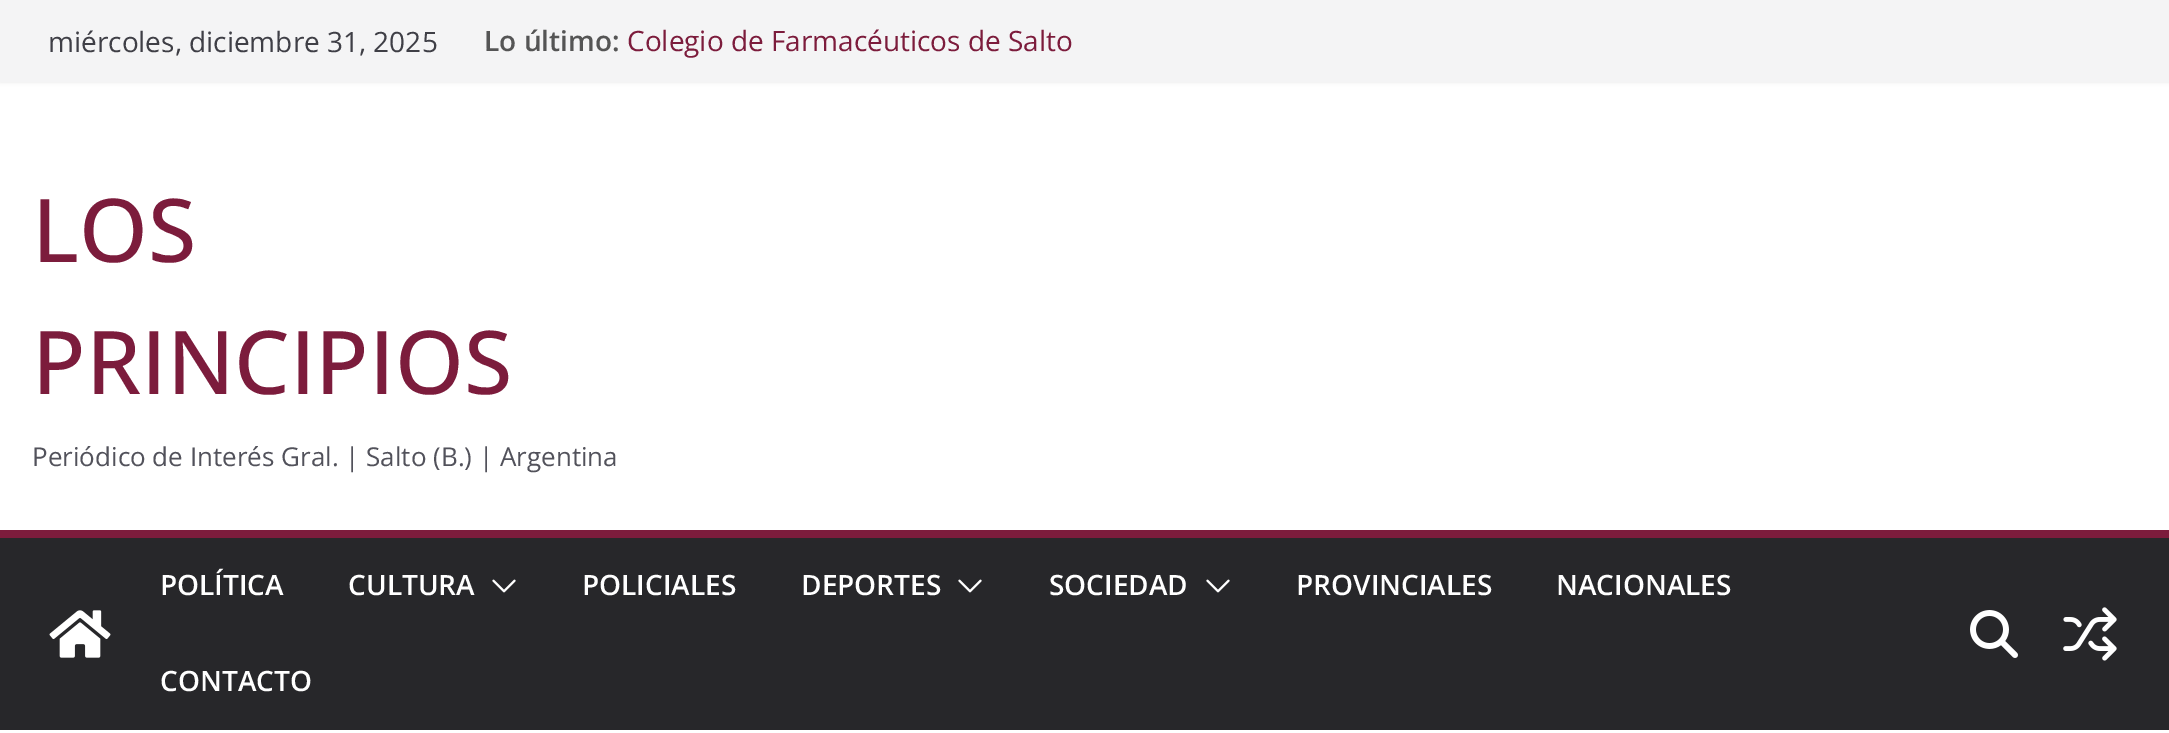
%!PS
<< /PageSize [2169 733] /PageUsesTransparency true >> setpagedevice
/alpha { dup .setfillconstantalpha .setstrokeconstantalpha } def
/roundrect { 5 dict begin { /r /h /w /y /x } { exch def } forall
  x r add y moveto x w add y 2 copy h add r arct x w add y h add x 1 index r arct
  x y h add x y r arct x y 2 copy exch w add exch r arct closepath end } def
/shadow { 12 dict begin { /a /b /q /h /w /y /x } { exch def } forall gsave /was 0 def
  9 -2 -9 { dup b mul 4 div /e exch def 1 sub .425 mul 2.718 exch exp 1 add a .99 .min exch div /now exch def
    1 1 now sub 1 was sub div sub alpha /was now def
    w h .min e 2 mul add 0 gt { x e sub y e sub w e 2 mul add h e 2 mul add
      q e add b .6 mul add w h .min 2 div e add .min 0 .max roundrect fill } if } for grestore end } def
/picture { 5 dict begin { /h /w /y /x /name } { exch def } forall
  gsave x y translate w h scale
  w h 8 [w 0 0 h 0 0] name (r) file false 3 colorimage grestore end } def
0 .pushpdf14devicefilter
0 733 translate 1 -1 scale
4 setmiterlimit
1 setgray
0 0 2169 733 rectfill
0 setgray
0 0 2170 82 0 2 0.1 shadow
0.957 0.957 0.961 setrgbcolor
0 0 2169 82 rectfill
/OpenSans-Regular [28 0 0 -28 0 0] selectfont
0.247 0.247 0.275 setrgbcolor
48 52 moveto (miércoles, diciembre 31, 2025) show
/OpenSans-SemiBold [28 0 0 -28 0 0] selectfont
0.333 setgray
484 51 moveto (Lo último:) show
/OpenSans-Regular [28 0 0 -28 0 0] selectfont
0.486 0.11 0.235 setrgbcolor
627 51 moveto (Colegio de Farmacéuticos de Salto) show
/OpenSans-Medium [88 0 0 -88 0 0] selectfont
32 262 moveto (LOS) show
32 394 moveto (PRINCIPIOS) show
/OpenSans-Regular [26 0 0 -26 0 0] selectfont
0.322 0.322 0.357 setrgbcolor
32 466 moveto (Periódico de Interés Gral. | Salto \(B.\) | Argentina) show
0.153 0.153 0.165 setrgbcolor
0 538 2169 192 rectfill
0.486 0.11 0.235 setrgbcolor
0 530 2169 8 rectfill
(img1.rgb) 49 610 62 48 picture
/OpenSans-SemiBold [28 0 0 -28 0 0] selectfont
1 setgray
160 595 moveto (POLÍTICA) show
348 595 moveto (CULTURA) show
(img2.rgb) 492 579 24 14 picture
582 595 moveto (POLICIALES) show
801 595 moveto (DEPORTES) show
(img2.rgb) 958 579 24 14 picture
1049 595 moveto (SOCIEDAD) show
(img2.rgb) 1206 579 24 14 picture
1296 595 moveto (PROVINCIALES) show
1556 595 moveto (NACIONALES) show
160 691 moveto (CONTACTO) show
(img3.rgb) 1970 610 48 48 picture
(img4.rgb) 2063 607 54 54 picture
.poppdf14devicefilter showpage
